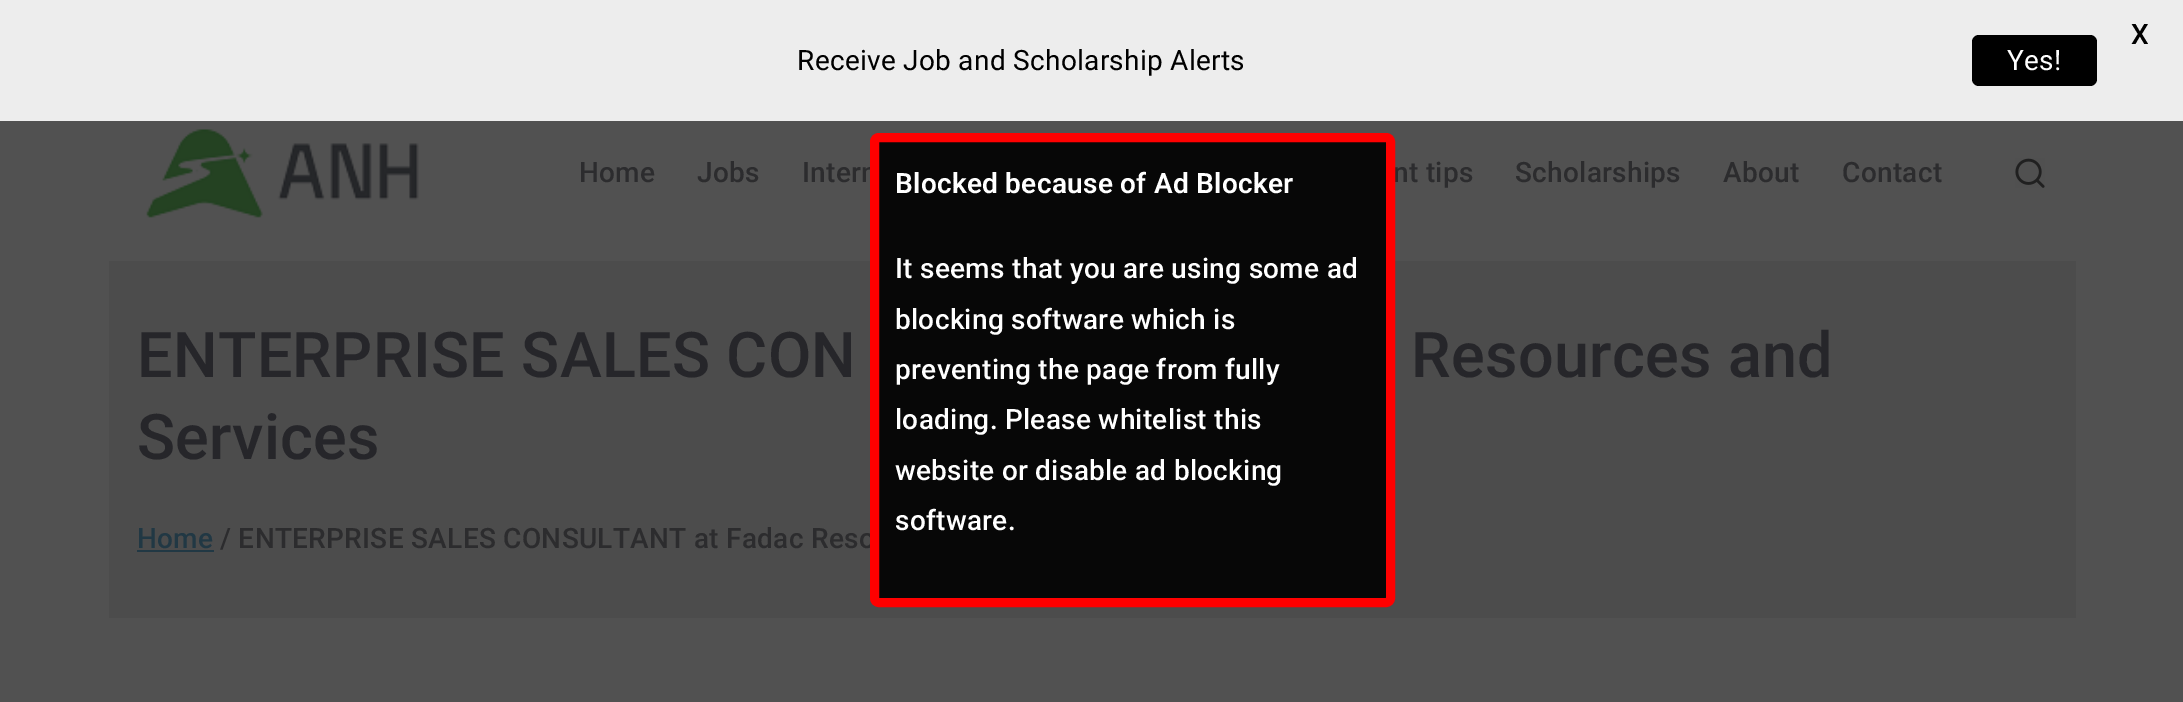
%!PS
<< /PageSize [2183 702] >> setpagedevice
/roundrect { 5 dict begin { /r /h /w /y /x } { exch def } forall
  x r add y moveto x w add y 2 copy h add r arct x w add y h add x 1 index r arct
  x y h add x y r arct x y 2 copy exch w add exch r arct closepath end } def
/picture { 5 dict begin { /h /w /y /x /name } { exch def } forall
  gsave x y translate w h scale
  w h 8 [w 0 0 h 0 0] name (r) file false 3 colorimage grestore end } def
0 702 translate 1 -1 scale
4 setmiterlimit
0.318 setgray
0 0 2183 702 rectfill
0.929 setgray
0 0 2183 121 rectfill
/Roboto-Medium [28 0 0 -28 0 0] selectfont
0 setgray
2131 44 moveto 0.3 0 (X) ashow
/Roboto-Regular [28 0 0 -28 0 0] selectfont
797 70 moveto 0.3 0 (Receive Job and Scholarship Alerts) ashow
1972 35 125 51 7 roundrect fill
1 setgray
2007 70 moveto 0.3 0 (Yes!) ashow
0.298 setgray
109 261 1967 357 rectfill
(img1.rgb) 137 121 297 104 picture
/Roboto-Medium [28 0 0 -28 0 0] selectfont
0.173 0.173 0.18 setrgbcolor
579 182 moveto 0.3 0 (Home) ashow
697 182 moveto 0.3 0 (Jobs) ashow
802 182 moveto 0.3 0 (Intern) ashow
1393 182 moveto 0.3 0 (nt tips) ashow
1515 182 moveto 0.3 0 (Scholarships) ashow
1723 182 moveto 0.3 0 (About) ashow
1842 182 moveto 0.3 0 (Contact) ashow
(img2.rgb) 2015 158 30 30 picture
/Roboto-Medium [63 0 0 -63 0 0] selectfont
0.149 0.149 0.165 setrgbcolor
137 377 moveto 0.3 0 (ENTERPRISE SALES CON) ashow
1411 377 moveto 0.3 0 (Resources and) ashow
137 459 moveto 0.3 0 (Services) ashow
/Roboto-Medium [28 0 0 -28 0 0] selectfont
0.129 0.22 0.267 setrgbcolor
137 548 moveto 0.3 0 (Home) ashow
137 550 77 2 rectfill
0.173 0.173 0.18 setrgbcolor
220 548 moveto 0.3 0 (/ ENTERPRISE SALES CONSULTANT at Fadac Reso) ashow
0.027 setgray
874.5 137.5 516 465 4.5 roundrect gsave fill grestore
1 0 0 setrgbcolor
9 setlinewidth
stroke
/Roboto-SemiBold [28 0 0 -28 0 0] selectfont
1 setgray
895 193 moveto 0.3 0 (Blocked because of Ad Blocker) ashow
/Roboto-Medium [28 0 0 -28 0 0] selectfont
895 278 moveto 0.3 0 (It seems that you are using some ad) ashow
895 329 moveto 0.3 0 (blocking software which is) ashow
895 379 moveto 0.3 0 (preventing the page from fully) ashow
895 429 moveto 0.3 0 (loading. Please whitelist this) ashow
895 480 moveto 0.3 0 (website or disable ad blocking) ashow
895 530 moveto 0.3 0 (software.) ashow
showpage
